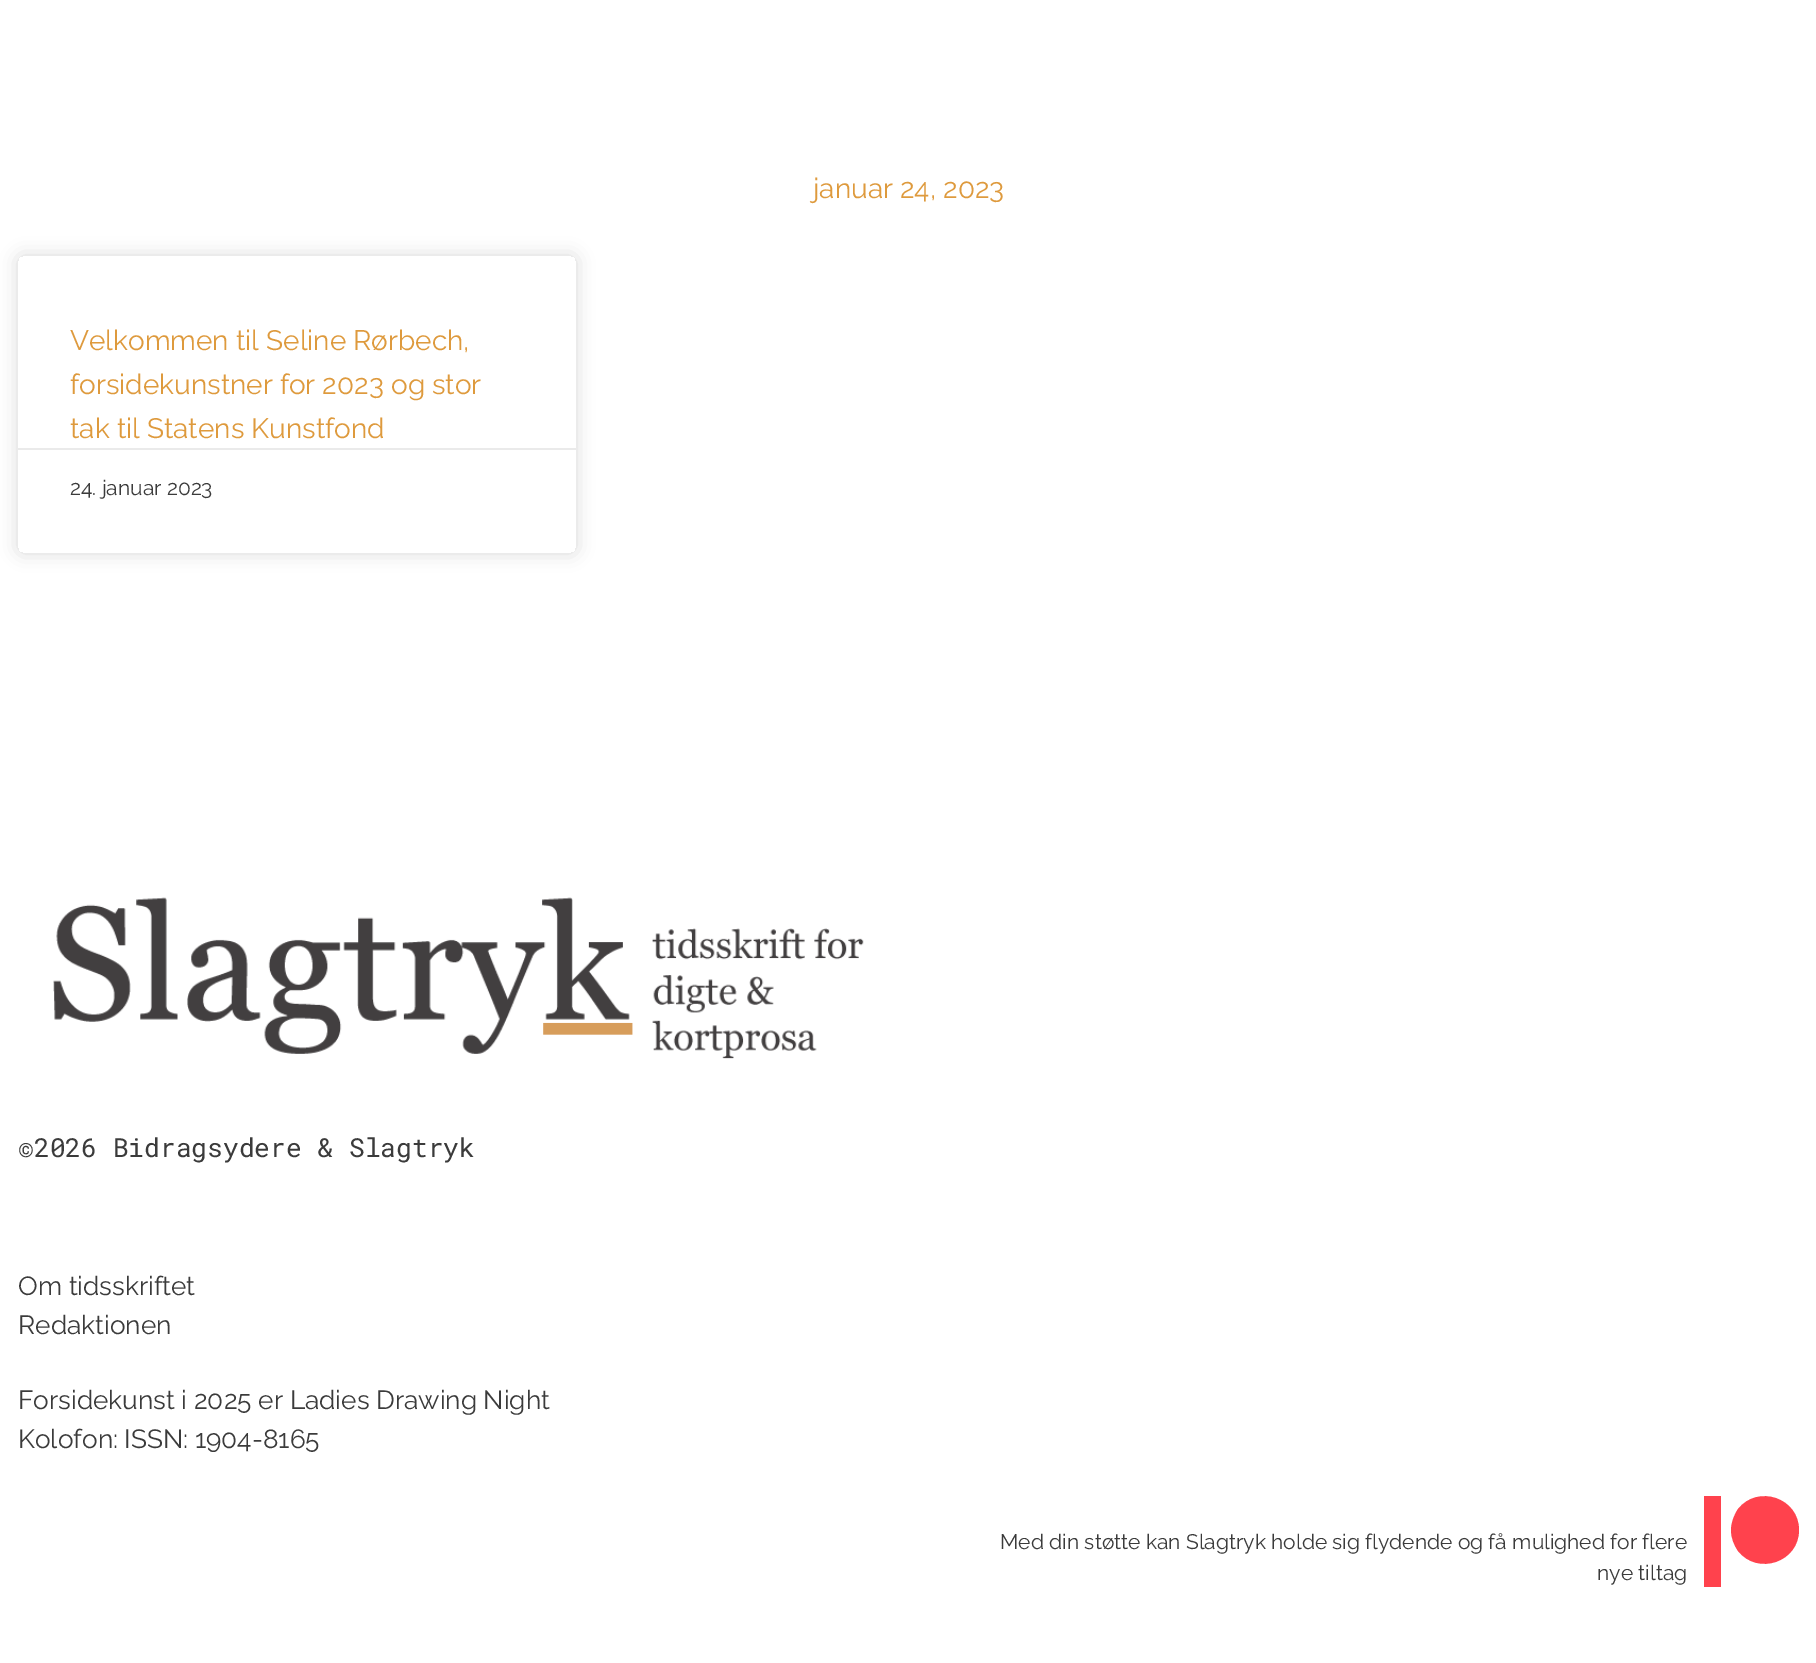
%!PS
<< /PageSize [1816 1663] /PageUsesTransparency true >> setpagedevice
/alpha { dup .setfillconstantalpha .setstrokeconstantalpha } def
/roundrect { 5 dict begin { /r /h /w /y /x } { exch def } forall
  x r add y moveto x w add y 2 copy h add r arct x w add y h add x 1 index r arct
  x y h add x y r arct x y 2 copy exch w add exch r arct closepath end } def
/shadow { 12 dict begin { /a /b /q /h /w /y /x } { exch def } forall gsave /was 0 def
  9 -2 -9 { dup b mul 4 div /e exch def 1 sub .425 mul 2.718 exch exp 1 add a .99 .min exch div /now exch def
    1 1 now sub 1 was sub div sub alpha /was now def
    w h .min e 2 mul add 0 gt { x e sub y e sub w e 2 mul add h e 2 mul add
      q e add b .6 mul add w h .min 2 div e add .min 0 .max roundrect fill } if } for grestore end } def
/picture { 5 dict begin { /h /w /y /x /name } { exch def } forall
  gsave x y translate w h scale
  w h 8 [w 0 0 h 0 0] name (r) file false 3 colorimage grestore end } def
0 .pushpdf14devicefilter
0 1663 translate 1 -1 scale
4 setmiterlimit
1 setgray
0 0 1816 1663 rectfill
/Raleway-Regular [28 0 0 -28 0 0] selectfont
0.871 0.604 0.239 setrgbcolor
813 198 moveto (januar 24, 2023) show
gsave
newpath 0 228 moveto 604 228 lineto 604 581 lineto 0 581 lineto closepath 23 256 moveto 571 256 lineto 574 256 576 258 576 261 curveto 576 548 lineto 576 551 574 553 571 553 curveto 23 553 lineto 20 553 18 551 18 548 curveto 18 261 lineto 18 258 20 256 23 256 curveto closepath eoclip newpath
0 setgray
18 256 558 297 5 9 0.15 shadow
grestore
70 350 moveto (Velkommen til Seline Rørbech,) show
70 394 moveto (forsidekunstner for 2023 og stor) show
70 438 moveto (tak til Statens Kunstfond) show
0.918 setgray
18 448 558 2 rectfill
/Raleway-Regular [21 0 0 -21 0 0] selectfont
0.231 setgray
70 495 moveto (24. januar 2023) show
(img1.rgb) 53 897 811 162 picture
/RobotoMono-Regular [26.25 0 0 -26.25 0 0] selectfont
18 1157 moveto (©2026 Bidragsydere & Slagtryk) show
/Raleway-Regular [26.25 0 0 -26.25 0 0] selectfont
18 1295 moveto (Om tidsskriftet) show
18 1334 moveto (Redaktionen) show
18 1409 moveto (Forsidekunst i 2025 er Ladies Drawing Night) show
18 1448 moveto (Kolofon: ISSN: 1904-8165) show
/Raleway-Regular [21 0 0 -21 0 0] selectfont
1000 1549 moveto (Med din støtte kan Slagtryk holde sig flydende og få mulighed for flere) show
1597 1580 moveto (nye tiltag) show
1 0.259 0.302 setrgbcolor
newpath 1799 1530 moveto 1799 1562 1758 1576 1738 1551 curveto 1734 1545 1731 1538 1731 1530 curveto 1731 1523 1734 1515 1738 1509 curveto 1758 1484 1799 1498 1799 1530 curveto closepath 1704 1587 moveto 1704 1496 lineto 1721 1496 lineto 1721 1587 lineto closepath fill
.poppdf14devicefilter showpage
